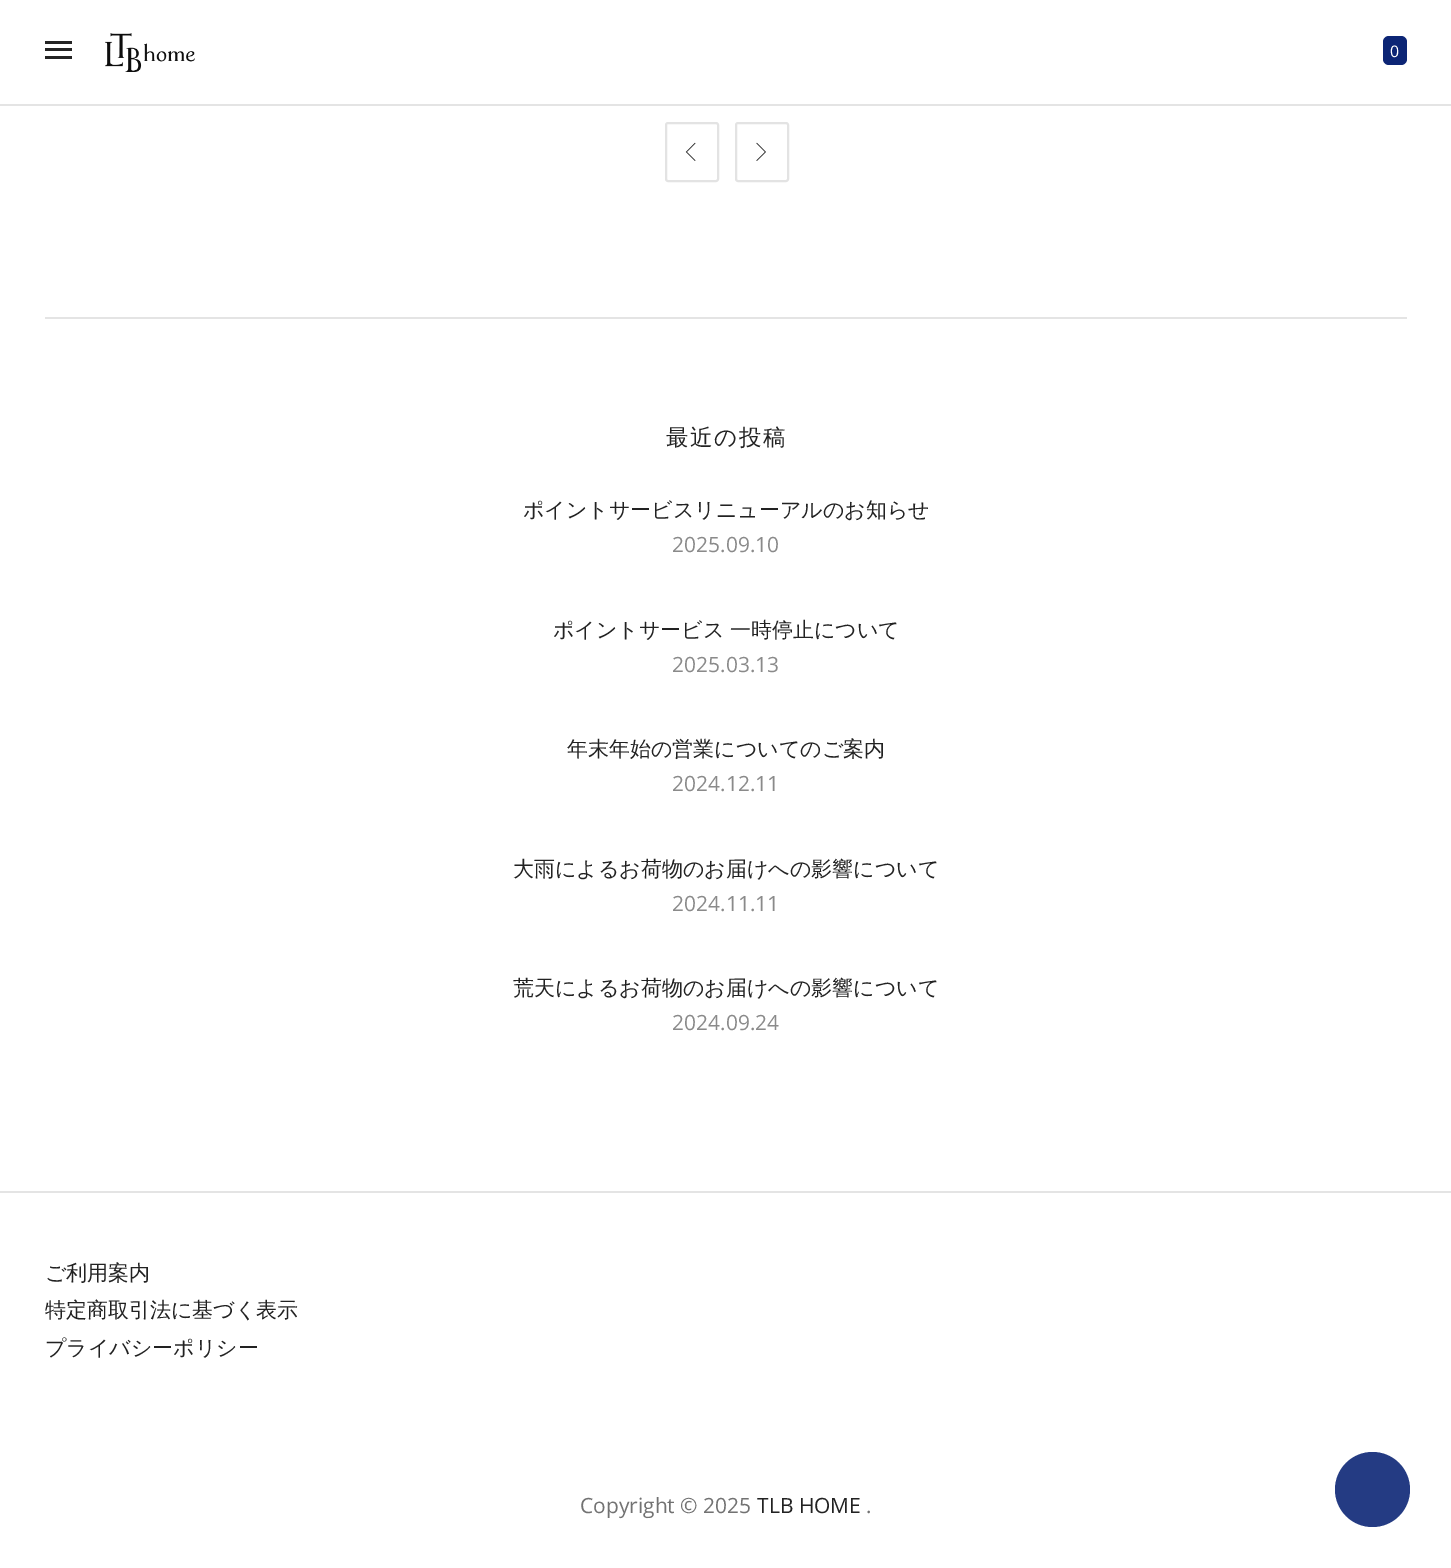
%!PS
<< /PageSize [1451 1568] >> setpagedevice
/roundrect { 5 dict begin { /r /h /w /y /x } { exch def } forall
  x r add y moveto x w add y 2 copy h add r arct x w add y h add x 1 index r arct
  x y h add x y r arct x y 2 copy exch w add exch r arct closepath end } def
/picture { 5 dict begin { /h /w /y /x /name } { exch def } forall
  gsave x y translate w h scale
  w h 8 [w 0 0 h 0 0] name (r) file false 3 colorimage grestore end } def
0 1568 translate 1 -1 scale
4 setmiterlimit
1 setgray
0 0 1451 1568 rectfill
(img1.rgb) 105 33 90 39 picture
0.894 setgray
0 104 1451 2 rectfill
0.141 setgray
45 48 27 3 rectfill
45 41 27 3 rectfill
45 56 27 3 rectfill
0.047 0.145 0.459 setrgbcolor
1383 36 24 29 6 roundrect fill
/OpenSans-Regular [16 0 0 -16 0 0] selectfont
1 setgray
1390 57 moveto (0) show
0.894 setgray
45 317 1362 2 rectfill
0.89 setgray
2 setlinewidth
666 123 52 58 2 roundrect stroke
(img2.rgb) 685 142 11 19 picture
736 123 52 58 2 roundrect stroke
(img3.rgb) 756 142 10 19 picture
/WenQuanYiZenHei-Medium [22.5 0 0 -22.5 0 0] selectfont
0.133 setgray
666 445 moveto 1.5 0 (最近の投稿) ashow
/WenQuanYiZenHei-Medium [21 0 0 -21 0 0] selectfont
523 517 moveto (ポイントサービスリニューアルのお知らせ) show
/OpenSans-Regular [21 0 0 -21 0 0] selectfont
0.541 setgray
672 552 moveto (2025.09.10) show
/WenQuanYiZenHei-Medium [21 0 0 -21 0 0] selectfont
0.133 setgray
553 637 moveto -1 0 32 (ポイントサービス 一時停止について) widthshow
/OpenSans-Regular [21 0 0 -21 0 0] selectfont
0.541 setgray
672 672 moveto (2025.03.13) show
/WenQuanYiZenHei-Medium [21 0 0 -21 0 0] selectfont
0.133 setgray
567 756 moveto (年末年始の営業についてのご案内) show
/OpenSans-Regular [21 0 0 -21 0 0] selectfont
0.541 setgray
672 791 moveto (2024.12.11) show
/WenQuanYiZenHei-Medium [21 0 0 -21 0 0] selectfont
0.133 setgray
513 876 moveto (大雨によるお荷物のお届けへの影響について) show
/OpenSans-Regular [21 0 0 -21 0 0] selectfont
0.541 setgray
672 911 moveto (2024.11.11) show
/WenQuanYiZenHei-Medium [21 0 0 -21 0 0] selectfont
0.133 setgray
513 995 moveto (荒天によるお荷物のお届けへの影響について) show
/OpenSans-Regular [21 0 0 -21 0 0] selectfont
0.541 setgray
672 1030 moveto (2024.09.24) show
0.894 setgray
0 1191 1451 2 rectfill
/WenQuanYiZenHei-Medium [21 0 0 -21 0 0] selectfont
0.133 setgray
45 1280 moveto (ご利用案内) show
45 1317 moveto (特定商取引法に基づく表示) show
45 1355 moveto (プライバシーポリシー) show
/OpenSans-Regular [21 0 0 -21 0 0] selectfont
0.447 setgray
580 1513 moveto (Copyright © 2025) show
0.133 setgray
757 1513 moveto (TLB HOME) show
0.447 setgray
866 1513 moveto (.) show
0.141 0.231 0.514 setrgbcolor
newpath 1372.5 1489.5 37.5 0 360 arc closepath fill
showpage
